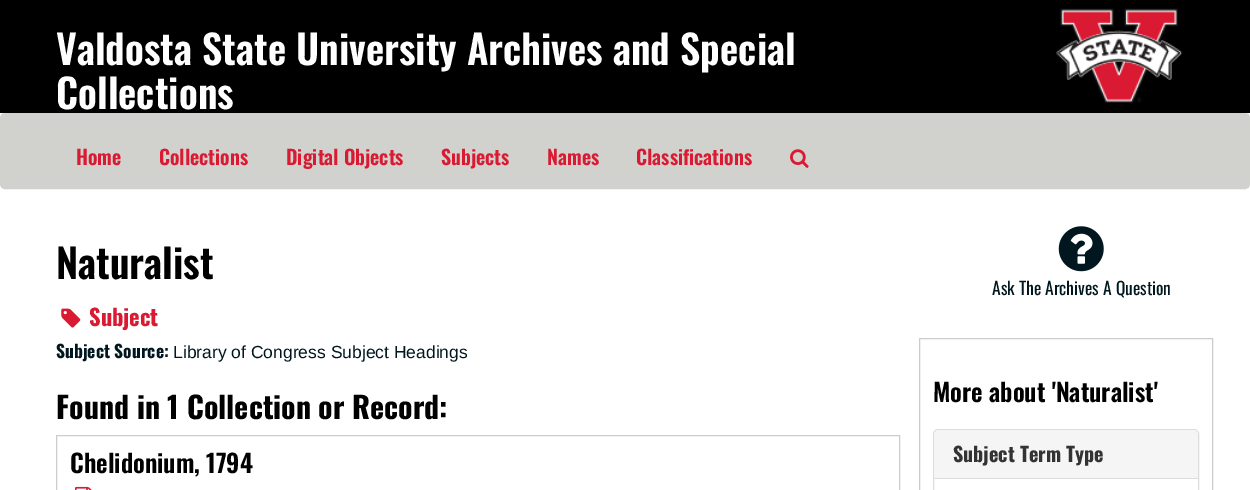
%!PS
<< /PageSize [1250 490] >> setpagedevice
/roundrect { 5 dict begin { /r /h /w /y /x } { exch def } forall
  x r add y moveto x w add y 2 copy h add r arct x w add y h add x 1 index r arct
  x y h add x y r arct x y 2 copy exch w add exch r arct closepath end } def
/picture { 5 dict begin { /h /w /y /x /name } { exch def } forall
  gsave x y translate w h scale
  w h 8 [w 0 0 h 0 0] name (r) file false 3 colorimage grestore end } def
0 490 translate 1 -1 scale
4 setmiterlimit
1 setgray
0 0 1250 490 rectfill
0 setgray
0 0 1250 113 rectfill
/Oswald-SemiBold [40 0 0 -40 0 0] selectfont
1 setgray
56 65 moveto (Valdosta State University Archives and Special) show
56 109 moveto (Collections) show
(img1.rgb) 1056 8 126 95 picture
0.82 0.82 0.808 setrgbcolor
0.5 113.5 1249 75 4.5 roundrect stroke
1 114 1248 74 rectfill
/Oswald-SemiBold [20 0 0 -20 0 0] selectfont
0.855 0.102 0.196 setrgbcolor
76 165 moveto (Home) show
159 165 moveto (Collections) show
286 165 moveto (Digital Objects) show
441 165 moveto (Subjects) show
547 165 moveto (Names) show
636 165 moveto (Classifications) show
(img2.rgb) 790 149 19 19 picture
/Oswald-SemiBold [40 0 0 -40 0 0] selectfont
0 setgray
56 279 moveto (Naturalist) show
(img3.rgb) 61 308 20 20 picture
/Oswald-Bold [22.5 0 0 -22.5 0 0] selectfont
0.855 0.102 0.196 setrgbcolor
89 326 moveto (Subject) show
(img4.rgb) 1058 226 46 46 picture
/Oswald-Regular [17.5 0 0 -17.5 0 0] selectfont
0 0.09 0.122 setrgbcolor
992 295 moveto (Ask The Archives A Question) show
/Oswald-Bold [17.5 0 0 -17.5 0 0] selectfont
56 358 moveto (Subject Source:) show
/LiberationSans-Regular [17.5 0 0 -17.5 0 0] selectfont
173 358 moveto (Library of Congress Subject Headings) show
/Oswald-Bold [30 0 0 -30 0 0] selectfont
0 setgray
56 419 moveto (Found in 1 Collection or Record:) show
0.8 setgray
56.5 435.5 843 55 rectstroke
/Oswald-SemiBold [25 0 0 -25 0 0] selectfont
0 setgray
70 473 moveto (Chelidonium, 1794) show
(img5.rgb) 75 486 17 4 picture
0.8 setgray
919.5 338.5 293 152 rectstroke
0 setgray
933 402 moveto (More about 'Naturalist') show
0.867 setgray
933.5 429.5 265 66 4.5 roundrect stroke
0.961 setgray
newpath 938 430 moveto 1194 430 lineto 1196 430 1198 432 1198 434 curveto 1198 478 lineto 934 478 lineto 934 434 lineto 934 432 936 430 938 430 curveto closepath fill
/Oswald-Bold [20 0 0 -20 0 0] selectfont
0.2 setgray
953 462 moveto (Subject Term Type) show
0.867 setgray
934 478 264 1 rectfill
showpage
